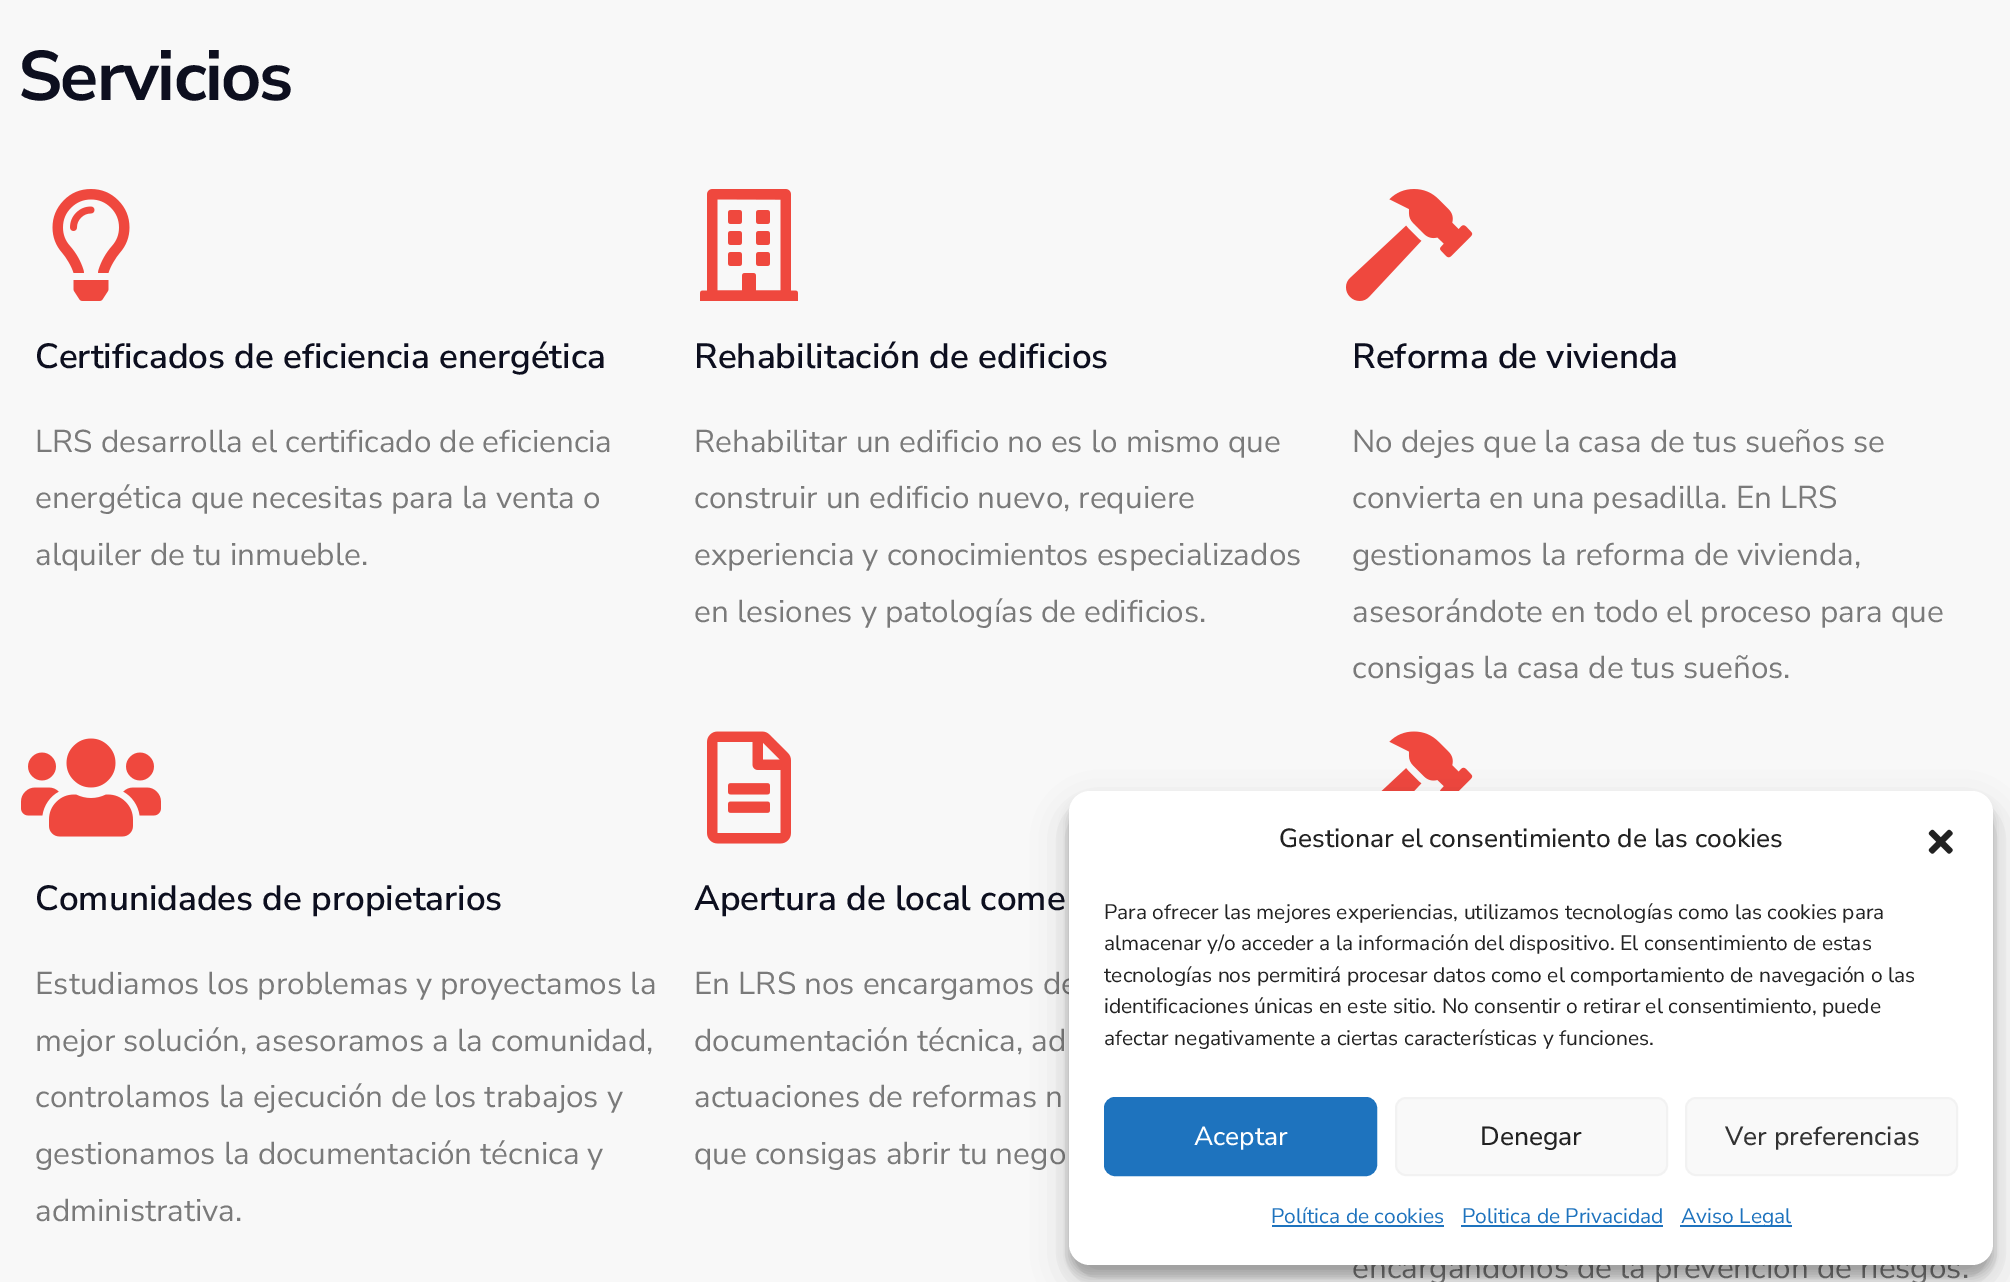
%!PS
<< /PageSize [2010 1282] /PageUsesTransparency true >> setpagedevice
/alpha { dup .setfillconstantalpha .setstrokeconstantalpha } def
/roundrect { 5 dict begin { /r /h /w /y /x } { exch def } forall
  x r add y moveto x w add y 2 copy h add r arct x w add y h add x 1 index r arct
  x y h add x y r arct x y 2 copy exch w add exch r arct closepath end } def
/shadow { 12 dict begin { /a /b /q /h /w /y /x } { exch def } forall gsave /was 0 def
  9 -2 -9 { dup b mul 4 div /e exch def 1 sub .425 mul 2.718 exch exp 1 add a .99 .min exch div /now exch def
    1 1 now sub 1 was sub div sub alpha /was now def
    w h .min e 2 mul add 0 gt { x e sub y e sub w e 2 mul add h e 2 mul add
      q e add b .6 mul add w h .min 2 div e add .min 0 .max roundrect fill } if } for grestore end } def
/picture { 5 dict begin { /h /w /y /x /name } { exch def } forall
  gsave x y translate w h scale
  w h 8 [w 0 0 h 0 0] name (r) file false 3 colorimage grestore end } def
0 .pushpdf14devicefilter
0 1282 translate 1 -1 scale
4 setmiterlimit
0.973 setgray
0 0 2010 1282 rectfill
/NunitoSans-Bold [70 0 0 -70 0 0] selectfont
0.051 0.059 0.122 setrgbcolor
18 100 moveto -1.75 0 (Servicios) ashow
(img1.rgb) 52 189 78 112 picture
/NunitoSans-SemiBold [35 0 0 -35 0 0] selectfont
35 368 moveto (Certificados de eficiencia energética) show
/NunitoSans-Regular [31.5 0 0 -31.5 0 0] selectfont
0.478 setgray
35 452 moveto (LRS desarrolla el certificado de eficiencia) show
35 508 moveto (energética que necesitas para la venta o) show
35 565 moveto (alquiler de tu inmueble.) show
(img2.rgb) 700 189 98 112 picture
/NunitoSans-SemiBold [35 0 0 -35 0 0] selectfont
0.051 0.059 0.122 setrgbcolor
694 368 moveto (Rehabilitación de edificios) show
/NunitoSans-Regular [31.5 0 0 -31.5 0 0] selectfont
0.478 setgray
694 452 moveto (Rehabilitar un edificio no es lo mismo que) show
694 508 moveto (construir un edificio nuevo, requiere) show
694 565 moveto (experiencia y conocimientos especializados) show
694 622 moveto (en lesiones y patologías de edificios.) show
(img3.rgb) 1346 189 127 112 picture
/NunitoSans-SemiBold [35 0 0 -35 0 0] selectfont
0.051 0.059 0.122 setrgbcolor
1352 368 moveto (Reforma de vivienda) show
/NunitoSans-Regular [31.5 0 0 -31.5 0 0] selectfont
0.478 setgray
1352 452 moveto (No dejes que la casa de tus sueños se) show
1352 508 moveto (convierta en una pesadilla. En LRS) show
1352 565 moveto (gestionamos la reforma de vivienda,) show
1352 622 moveto (asesorándote en todo el proceso para que) show
1352 678 moveto (consigas la casa de tus sueños.) show
(img4.rgb) 21 738 140 99 picture
/NunitoSans-SemiBold [35 0 0 -35 0 0] selectfont
0.051 0.059 0.122 setrgbcolor
35 910 moveto (Comunidades de propietarios) show
/NunitoSans-Regular [31.5 0 0 -31.5 0 0] selectfont
0.478 setgray
35 994 moveto (Estudiamos los problemas y proyectamos la) show
35 1051 moveto (mejor solución, asesoramos a la comunidad,) show
35 1107 moveto (controlamos la ejecución de los trabajos y) show
35 1164 moveto (gestionamos la documentación técnica y) show
35 1221 moveto (administrativa.) show
(img5.rgb) 707 731 84 113 picture
/NunitoSans-SemiBold [35 0 0 -35 0 0] selectfont
0.051 0.059 0.122 setrgbcolor
694 910 moveto (Apertura de local come) show
/NunitoSans-Regular [31.5 0 0 -31.5 0 0] selectfont
0.478 setgray
694 994 moveto (En LRS nos encargamos de) show
694 1051 moveto (documentación técnica, ad) show
694 1107 moveto (actuaciones de reformas n) show
694 1164 moveto (que consigas abrir tu nego) show
(img6.rgb) 1381 731 92 60 picture
1352 1278 moveto (encargándonos de la prevención de riesgos.) show
0 setgray
1069 802 924 474 21 5 0.23 shadow
1069 809 924 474 21 17.5 0.19 shadow
1 setgray
1069 791 924 474 21 roundrect fill
/NunitoSans-Medium [26.25 0 0 -26.25 0 0] selectfont
0.133 setgray
1279 847 moveto (Gestionar el consentimiento de las cookies) show
(img7.rgb) 1928 829 25 25 picture
/NunitoSans-Regular [21 0 0 -21 0 0] selectfont
1104 919 moveto (Para ofrecer las mejores experiencias, utilizamos tecnologías como las cookies para) show
1104 950 moveto (almacenar y/o acceder a la información del dispositivo. El consentimiento de estas) show
1104 982 moveto (tecnologías nos permitirá procesar datos como el comportamiento de navegación o las) show
1104 1013 moveto (identificaciones únicas en este sitio. No consentir o retirar el consentimiento, puede) show
1104 1045 moveto (afectar negativamente a ciertas características y funciones.) show
0.118 0.451 0.745 setrgbcolor
1105 1098 271 77 10 roundrect gsave fill grestore
2 setlinewidth
stroke
/NunitoSans-Medium [26.25 0 0 -26.25 0 0] selectfont
1 setgray
1194 1145 moveto (Aceptar) show
0.976 setgray
1396 1098 271 77 10 roundrect gsave fill grestore
0.949 setgray
stroke
0.133 setgray
1480 1145 moveto (Denegar) show
0.976 setgray
1686 1098 271 77 10 roundrect gsave fill grestore
0.949 setgray
stroke
0.2 setgray
1725 1145 moveto (Ver preferencias) show
/NunitoSans-Regular [21 0 0 -21 0 0] selectfont
0.118 0.451 0.745 setrgbcolor
1271 1223 moveto (Política de cookies) show
1272 1225 172 2 rectfill
1462 1223 moveto (Politica de Privacidad) show
1461 1225 202 2 rectfill
1680 1225 112 2 rectfill
1681 1223 moveto (Aviso Legal) show
.poppdf14devicefilter showpage
